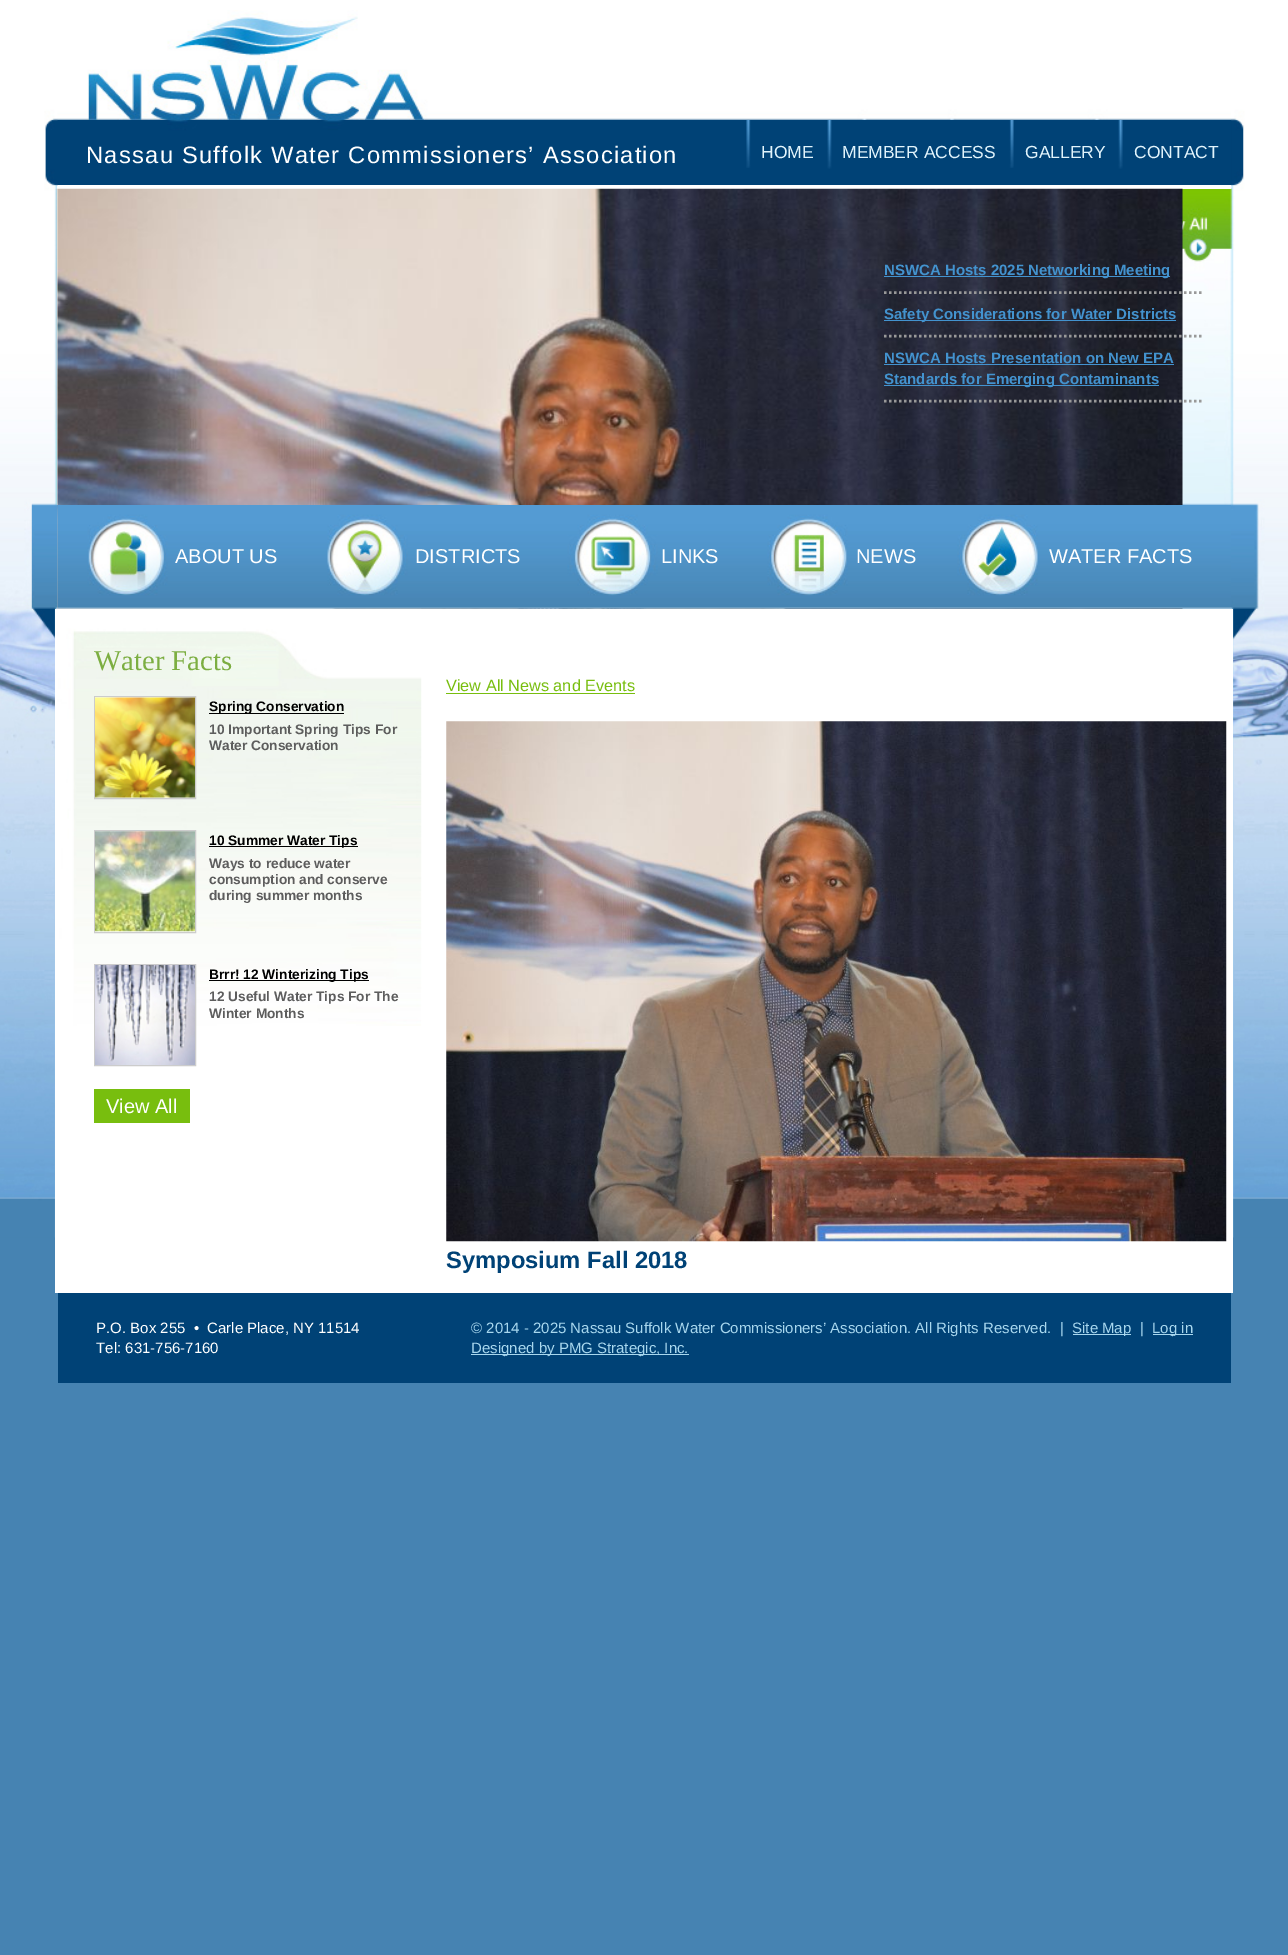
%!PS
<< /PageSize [1288 1955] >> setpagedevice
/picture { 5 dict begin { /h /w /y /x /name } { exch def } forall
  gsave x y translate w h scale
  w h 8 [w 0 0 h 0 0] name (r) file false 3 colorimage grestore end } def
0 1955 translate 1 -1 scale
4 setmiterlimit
0.275 0.514 0.698 setrgbcolor
0 0 1288 1955 rectfill
(img1.rgb) 0 0 1288 1238 picture
(img2.rgb) 57 10 1174 110 picture
(img3.rgb) 57 120 1175 65 picture
1 setgray
58 185 1173 4 rectfill
/LiberationSans-Regular [23.75 0 0 -23.75 0 0] selectfont
86 163 moveto 1.25 0 (Nassau Suffolk Water Commissioners’ Association) ashow
(img4.rgb) 746 120 5 48 picture
/LiberationSans-Regular [17.5 0 0 -17.5 0 0] selectfont
0.886 0.957 0.988 setrgbcolor
761 158 moveto (HOME) show
(img5.rgb) 827 120 5 49 picture
842 158 moveto (MEMBER ACCESS) show
(img6.rgb) 1009 120 5 48 picture
1025 158 moveto (GALLERY) show
(img7.rgb) 1118 120 5 49 picture
1134 158 moveto (CONTACT) show
(img8.rgb) 57 188 1126 421 picture
0.6 setgray
2.5 setlinewidth
[2.5 2.5] 0 setdash
newpath 884 292.5 moveto 1204 292.5 lineto stroke
0.263 0.576 0.812 setrgbcolor
884 276 286 1 rectfill
/LiberationSans-Bold [15 0 0 -15 0 0] selectfont
884 275 moveto (NSWCA Hosts 2025 Networking Meeting) show
0.6 setgray
newpath 884 336 moveto 1204 336 lineto stroke
0.263 0.576 0.812 setrgbcolor
884 320 292 1 rectfill
884 319 moveto (Safety Considerations for Water Districts) show
0.6 setgray
newpath 884 401 moveto 1204 401 lineto stroke
0.263 0.576 0.812 setrgbcolor
884 363 moveto (NSWCA Hosts Presentation on New EPA) show
884 364 290 1 rectfill
884 385 275 1 rectfill
884 384 moveto (Standards for Emerging Contaminants) show
(img9.rgb) 57 505 1174 104 picture
/LiberationSans-Regular [20 0 0 -20 0 0] selectfont
1 setgray
175 563 moveto (ABOUT US) show
415 563 moveto (DISTRICTS) show
661 563 moveto (LINKS) show
856 563 moveto (NEWS) show
1049 563 moveto (WATER FACTS) show
55 609 1178 684 rectfill
(img10.rgb) 57 608 365 418 picture
/LiberationSerif-Regular [28.75 0 0 -28.75 0 0] selectfont
0.486 0.682 0.255 setrgbcolor
94 670 moveto (Water Facts) show
0.8 setgray
1 setlinewidth
[] 0 setdash
94.5 696.5 101 102 rectstroke
(img11.rgb) 95 697 100 101 picture
0 setgray
209 713 135 1 rectfill
/LiberationSans-Bold [13.75 0 0 -13.75 0 0] selectfont
209 711 moveto (Spring Conservation) show
0.365 setgray
209 734 moveto (10 Important Spring Tips For) show
209 750 moveto (Water Conservation) show
0.8 setgray
94.5 830.5 101 102 rectstroke
(img12.rgb) 95 831 100 101 picture
0 setgray
209 846 149 1 rectfill
209 845 moveto (10 Summer Water Tips) show
0.365 setgray
209 868 moveto (Ways to reduce water) show
209 884 moveto (consumption and conserve) show
209 900 moveto (during summer months) show
0.8 setgray
94.5 964.5 101 101 rectstroke
(img13.rgb) 95 965 100 100 picture
0 setgray
209 980 160 1 rectfill
209 979 moveto (Brrr! 12 Winterizing Tips) show
0.365 setgray
209 1001 moveto (12 Useful Water Tips For The) show
209 1018 moveto (Winter Months) show
0.471 0.745 0.055 setrgbcolor
94 1089 96 34 rectfill
/LiberationSans-Regular [20 0 0 -20 0 0] selectfont
1 setgray
106 1113 moveto (View All) show
/LiberationSans-Regular [16.25 0 0 -16.25 0 0] selectfont
0.471 0.745 0.055 setrgbcolor
446 691 moveto (View All News and Events) show
446 693 189 1 rectfill
(img14.rgb) 446 721 781 521 picture
/LiberationSans-Bold [23.75 0 0 -23.75 0 0] selectfont
0 0.259 0.463 setrgbcolor
446 1268 moveto (Symposium Fall 2018) show
58 1293 1173 90 rectfill
/LiberationSans-Regular [15 0 0 -15 0 0] selectfont
1 setgray
96 1333 moveto (P.O. Box 255  •  Carle Place, NY 11514) show
96 1353 moveto (Tel: 631-756-7160) show
0.659 0.843 0.933 setrgbcolor
471 1333 moveto (© 2014 - 2025 Nassau Suffolk Water Commissioners’ Association. All Rights Reserved.  |) show
1073 1334 58 1 rectfill
1072 1333 moveto (Site Map) show
1140 1333 moveto (|) show
1153 1334 40 1 rectfill
1152 1333 moveto (Log in) show
471 1354 218 1 rectfill
471 1353 moveto (Designed by PMG Strategic, Inc.) show
showpage
